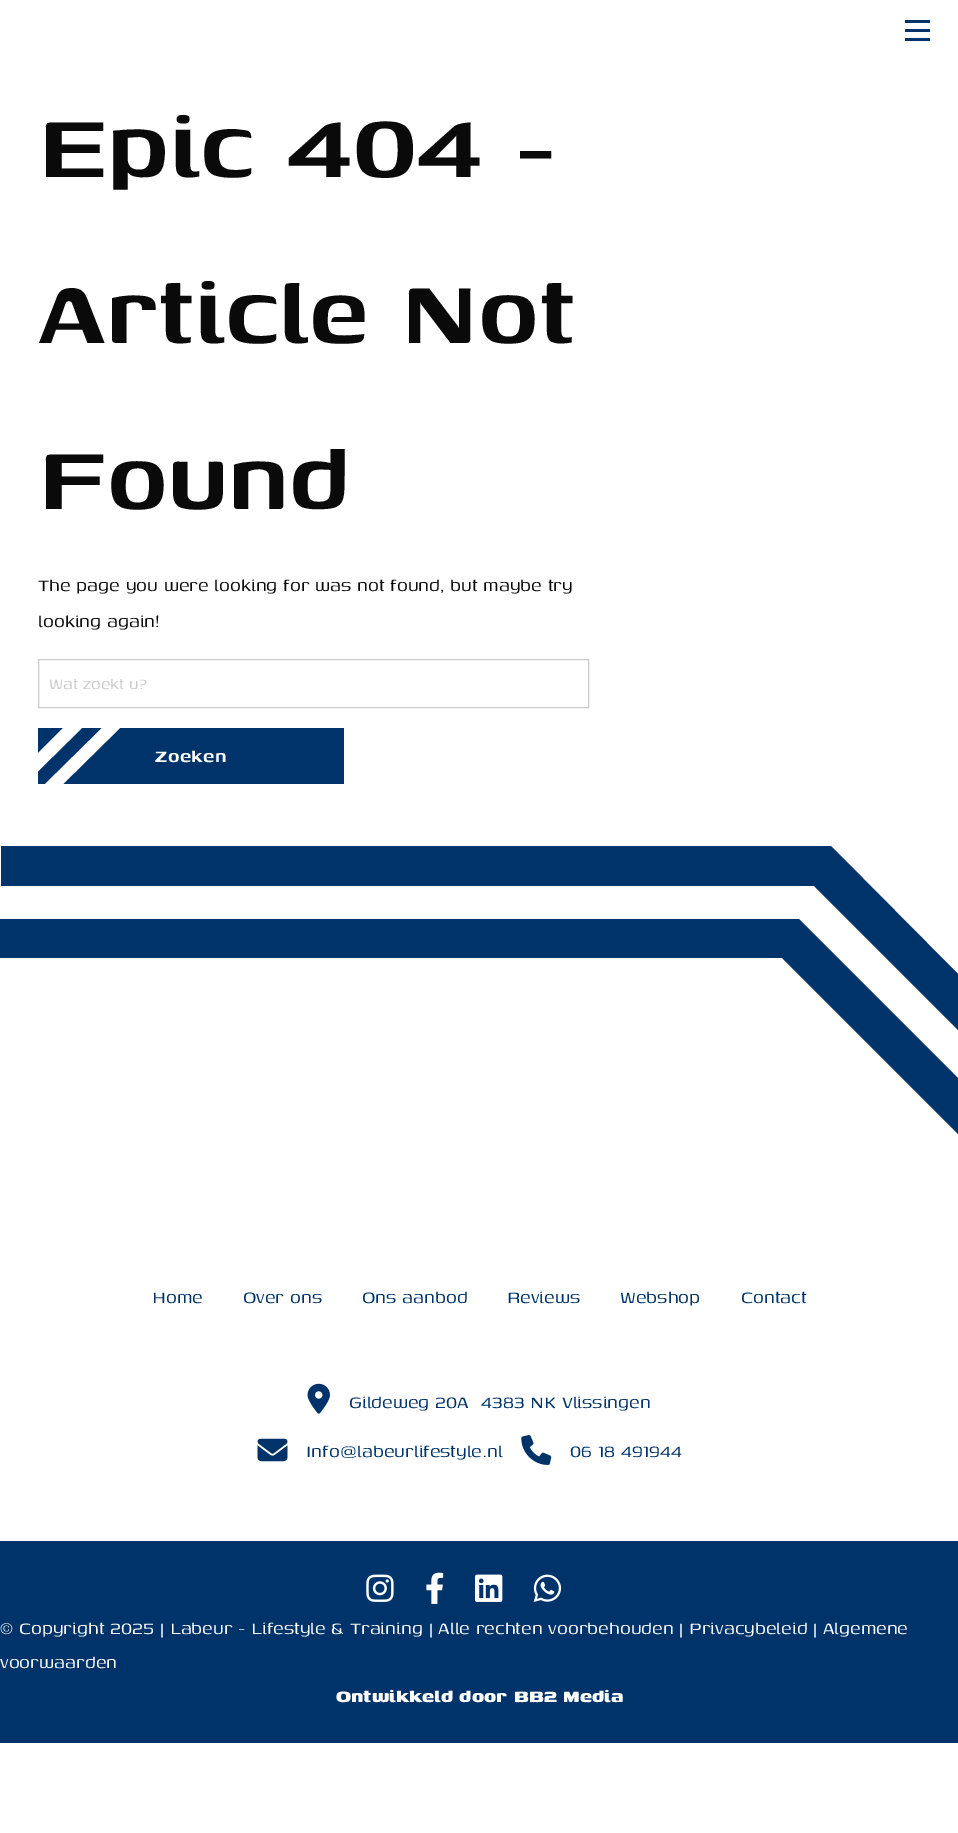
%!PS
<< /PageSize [958 1833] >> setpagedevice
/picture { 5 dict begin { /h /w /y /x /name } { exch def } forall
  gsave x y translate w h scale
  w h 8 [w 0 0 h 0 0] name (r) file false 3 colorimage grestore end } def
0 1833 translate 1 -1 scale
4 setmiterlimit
1 setgray
0 0 958 1833 rectfill
0 0.2 0.412 setrgbcolor
905 38 25 3 rectfill
905 29 25 3 rectfill
905 20 25 3 rectfill
/Genos-SemiBold [118.75 0 0 -118.75 0 0] selectfont
0.039 setgray
38 177 moveto (Epic 404 -) show
38 343 moveto (Article Not) show
38 509 moveto (Found) show
/Genos-Regular [22.5 0 0 -22.5 0 0] selectfont
38 591 moveto (The page you were looking for was not found, but maybe try) show
38 627 moveto (looking again!) show
0.792 setgray
38.5 659.5 550 48 rectstroke
/Genos-Regular [20 0 0 -20 0 0] selectfont
49 689 moveto (Wat zoekt u?) show
0 0.2 0.412 setrgbcolor
38 728 306 56 rectfill
gsave
38 728 86 56 rectclip
1 setgray
newpath 105 725 moveto 123 725 lineto 58 789 lineto 40 789 lineto closepath fill
newpath 66 725 moveto 85 725 lineto 20 789 lineto 2 789 lineto closepath fill
grestore
/Genos-SemiBold [22.5 0 0 -22.5 0 0] selectfont
1 setgray
155 762 moveto 0.5 0 (Zoeken) ashow
0 0.2 0.412 setrgbcolor
newpath 0 919 moveto 0 958 lineto 782 958 lineto 958 1134 lineto 958 1078 lineto 799 919 lineto closepath fill
newpath 1 846 moveto 1 886 lineto 814 886 lineto 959 1031 lineto 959 975 lineto 831 846 lineto closepath fill
/Genos-Regular [22.5 0 0 -22.5 0 0] selectfont
152 1303 moveto (Home) show
243 1303 moveto (Over ons) show
362 1303 moveto (Ons aanbod) show
507 1303 moveto (Reviews) show
620 1303 moveto (Webshop) show
741 1303 moveto (Contact) show
(img1.rgb) 307 1383 23 31 picture
349 1408 moveto (Gildeweg 20A) show
481 1408 moveto (4383 NK Vlissingen) show
(img2.rgb) 257 1438 31 24 picture
306 1457 moveto (Info@labeurlifestyle.nl) show
(img3.rgb) 521 1435 31 30 picture
570 1457 moveto (06 18 491944) show
0 1541 958 202 rectfill
(img4.rgb) 366 1574 28 28 picture
(img5.rgb) 426 1572 18 32 picture
(img6.rgb) 475 1574 28 28 picture
(img7.rgb) 533 1574 29 28 picture
1 setgray
0 1634 moveto (© Copyright 2025 | Labeur - Lifestyle & Training | Alle rechten voorbehouden | Privacybeleid | Algemene) show
0 1668 moveto (voorwaarden) show
/Genos-ExtraBold [22.5 0 0 -22.5 0 0] selectfont
336 1702 moveto (Ontwikkeld door BB2 Media) show
showpage
